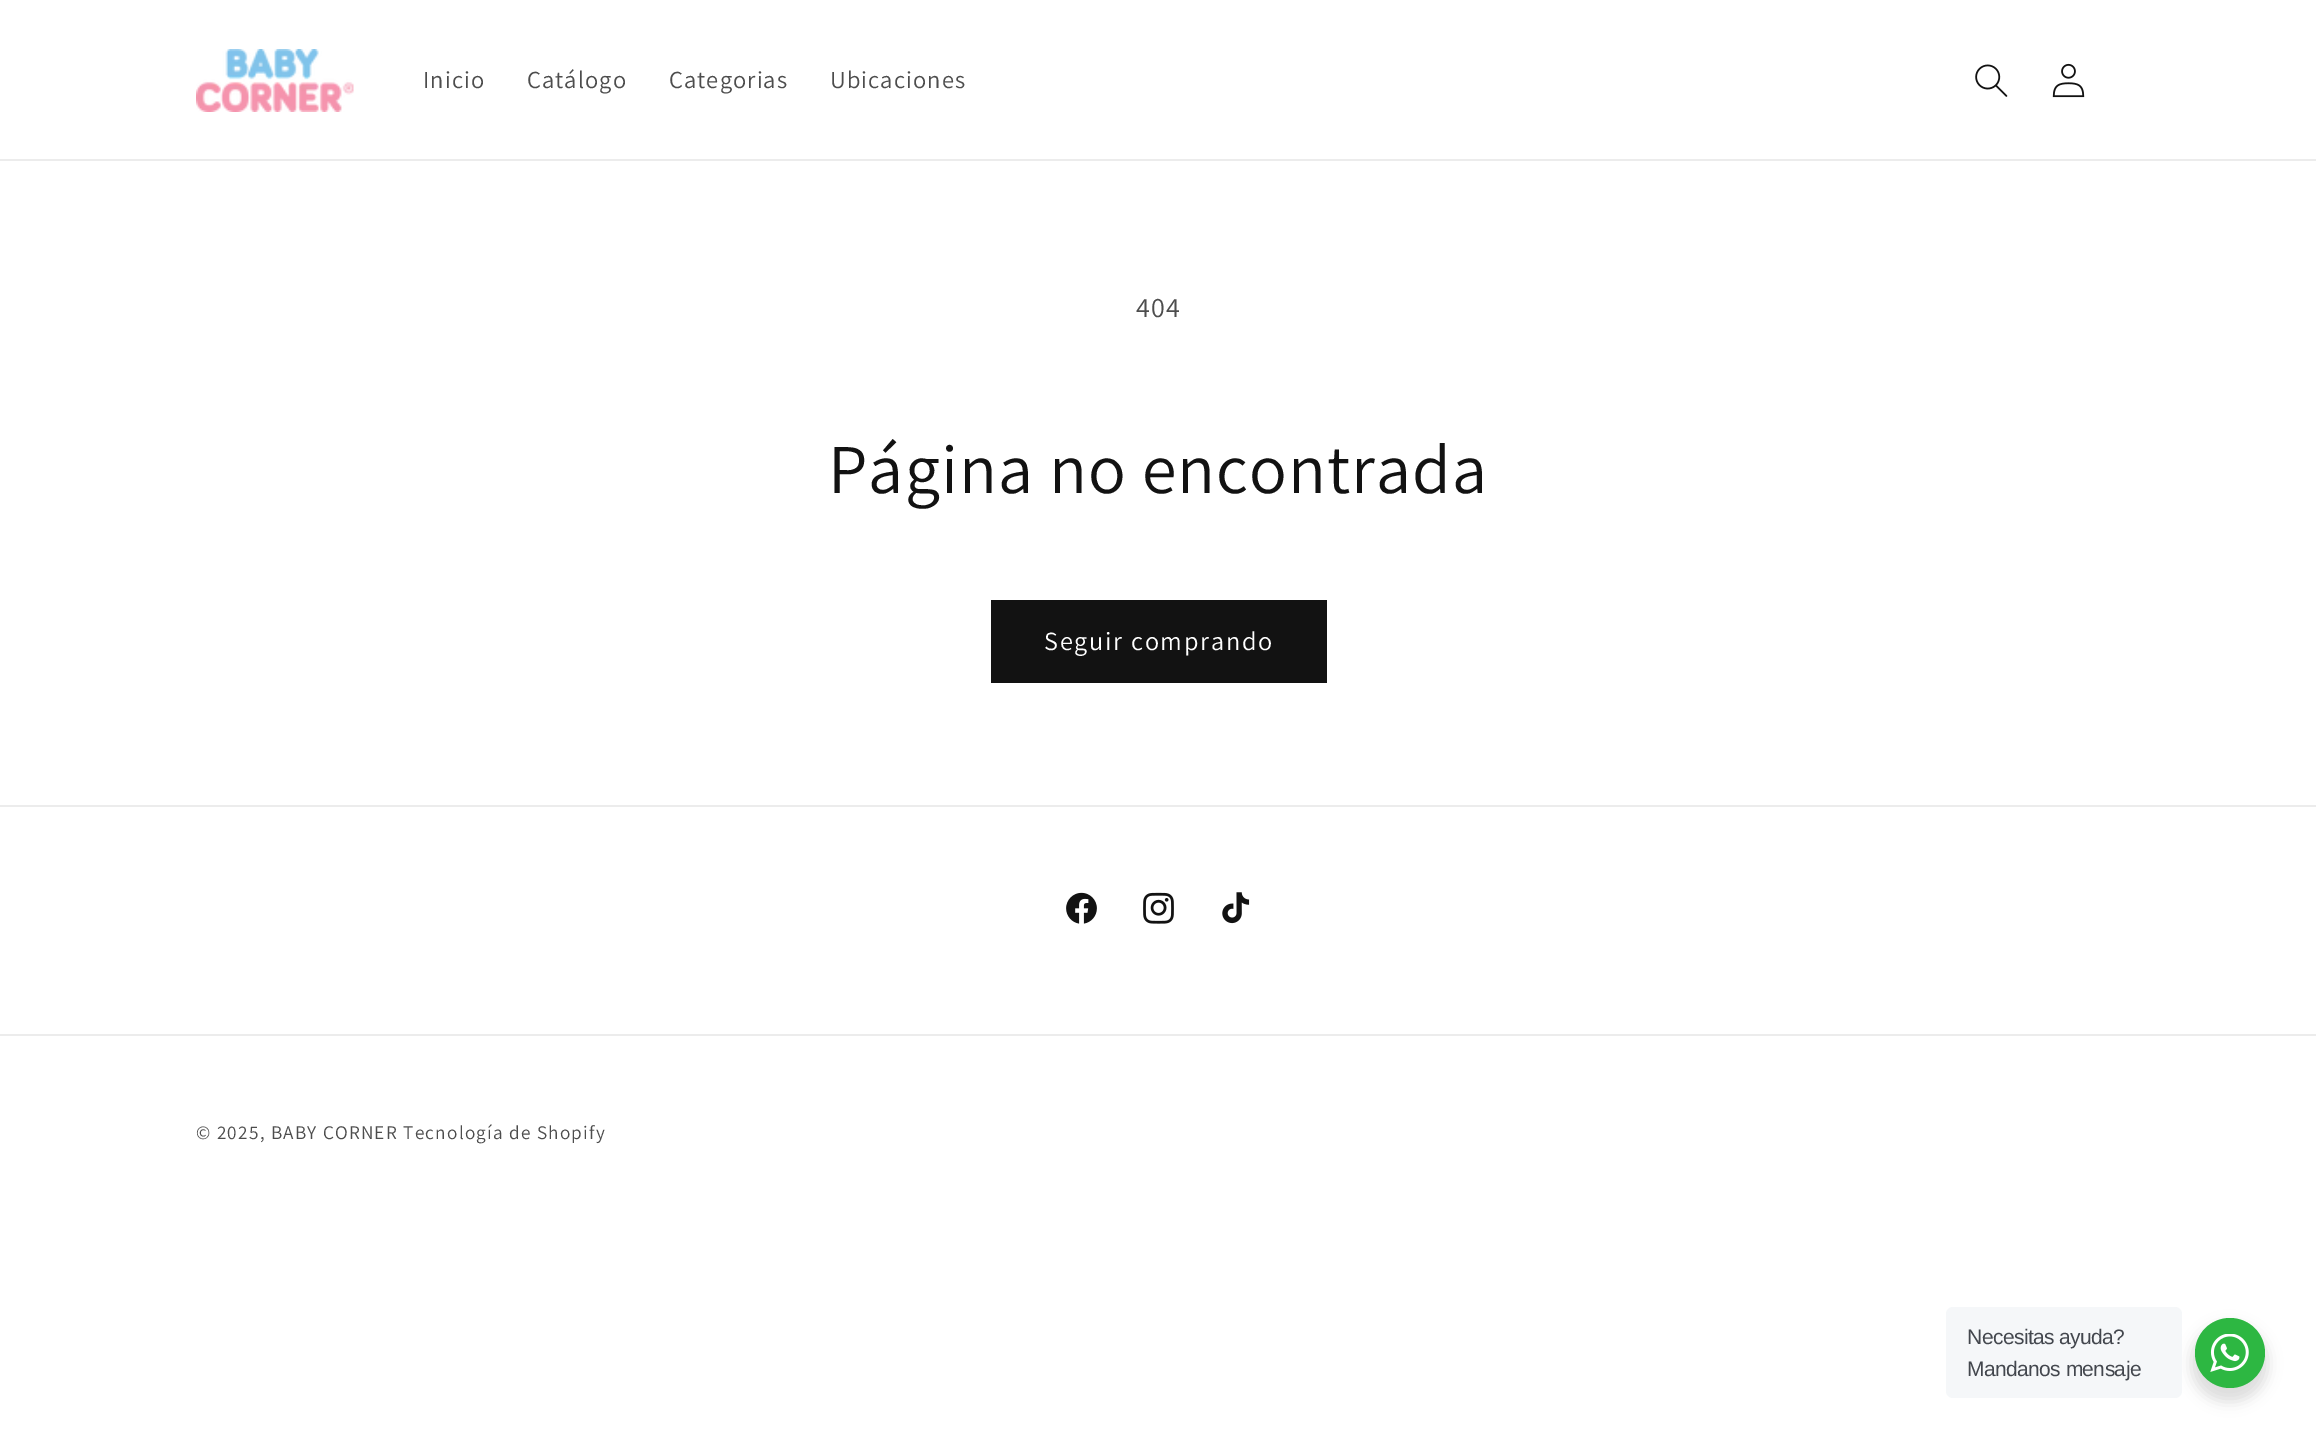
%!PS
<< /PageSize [2316 1440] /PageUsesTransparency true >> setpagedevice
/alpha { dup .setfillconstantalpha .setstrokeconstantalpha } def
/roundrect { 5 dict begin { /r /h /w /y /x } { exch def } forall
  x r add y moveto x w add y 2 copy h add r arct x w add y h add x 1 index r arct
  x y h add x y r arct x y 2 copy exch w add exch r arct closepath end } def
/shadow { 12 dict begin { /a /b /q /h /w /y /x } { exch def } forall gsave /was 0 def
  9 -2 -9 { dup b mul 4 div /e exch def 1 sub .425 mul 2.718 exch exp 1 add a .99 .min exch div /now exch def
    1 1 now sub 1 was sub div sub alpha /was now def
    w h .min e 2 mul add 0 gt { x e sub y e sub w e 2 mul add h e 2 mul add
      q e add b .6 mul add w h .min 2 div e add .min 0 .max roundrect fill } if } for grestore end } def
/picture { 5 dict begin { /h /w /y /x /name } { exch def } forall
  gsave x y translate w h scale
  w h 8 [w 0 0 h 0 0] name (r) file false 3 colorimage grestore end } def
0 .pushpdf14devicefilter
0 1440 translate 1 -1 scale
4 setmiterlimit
1 setgray
0 0 2316 1440 rectfill
0.925 setgray
0 159 2316 2 rectfill
(img1.rgb) 196 49 158 63 picture
/Assistant-Regular [24.5 0 0 -24.5 0 0] selectfont
0.302 setgray
423 88 moveto 1.05 0 (Inicio) ashow
527 88 moveto 1.05 0 (Catálogo) ashow
669 88 moveto 1.05 0 (Categorias) ashow
830 88 moveto 1.05 0 (Ubicaciones) ashow
(img2.rgb) 1975 64 33 33 picture
(img3.rgb) 2052 63 33 35 picture
/Assistant-Regular [28 0 0 -28 0 0] selectfont
1136 317 moveto 1.05 0 (404) ashow
/Assistant-Regular [70 0 0 -70 0 0] selectfont
0.071 setgray
828 493 moveto 1.05 0 (Página no encontrada) ashow
991 600 336 83 rectfill
/Assistant-Regular [26.25 0 0 -26.25 0 0] selectfont
1 setgray
1044 650 moveto 1.75 0 (Seguir comprando) ashow
0.925 setgray
0 805 2316 2 rectfill
(img4.rgb) 1066 892 31 32 picture
(img5.rgb) 1143 892 31 32 picture
(img6.rgb) 1222 892 28 32 picture
0 1034 2316 2 rectfill
/Assistant-Regular [19.25 0 0 -19.25 0 0] selectfont
0.302 setgray
196 1139 moveto 1.25 0 (© 2025, BABY CORNER) ashow
403 1139 moveto 1.25 0 (Tecnología de Shopify) ashow
0 setgray
2191 1325 77 77 38.5 7 0.14 shadow
0.961 0.969 0.976 setrgbcolor
1946 1307 236 91 7 roundrect fill
/LiberationSans-Regular [21 0 0 -21 0 0] selectfont
0.263 0.278 0.306 setrgbcolor
1967 1344 moveto -0.6 0 (Necesitas ayuda?) ashow
1967 1376 moveto -0.6 0 (Mandanos mensaje) ashow
0.176 0.718 0.259 setrgbcolor
newpath 2230 1353 35 0 360 arc closepath fill
(img7.rgb) 2210 1334 39 38 picture
.poppdf14devicefilter showpage
